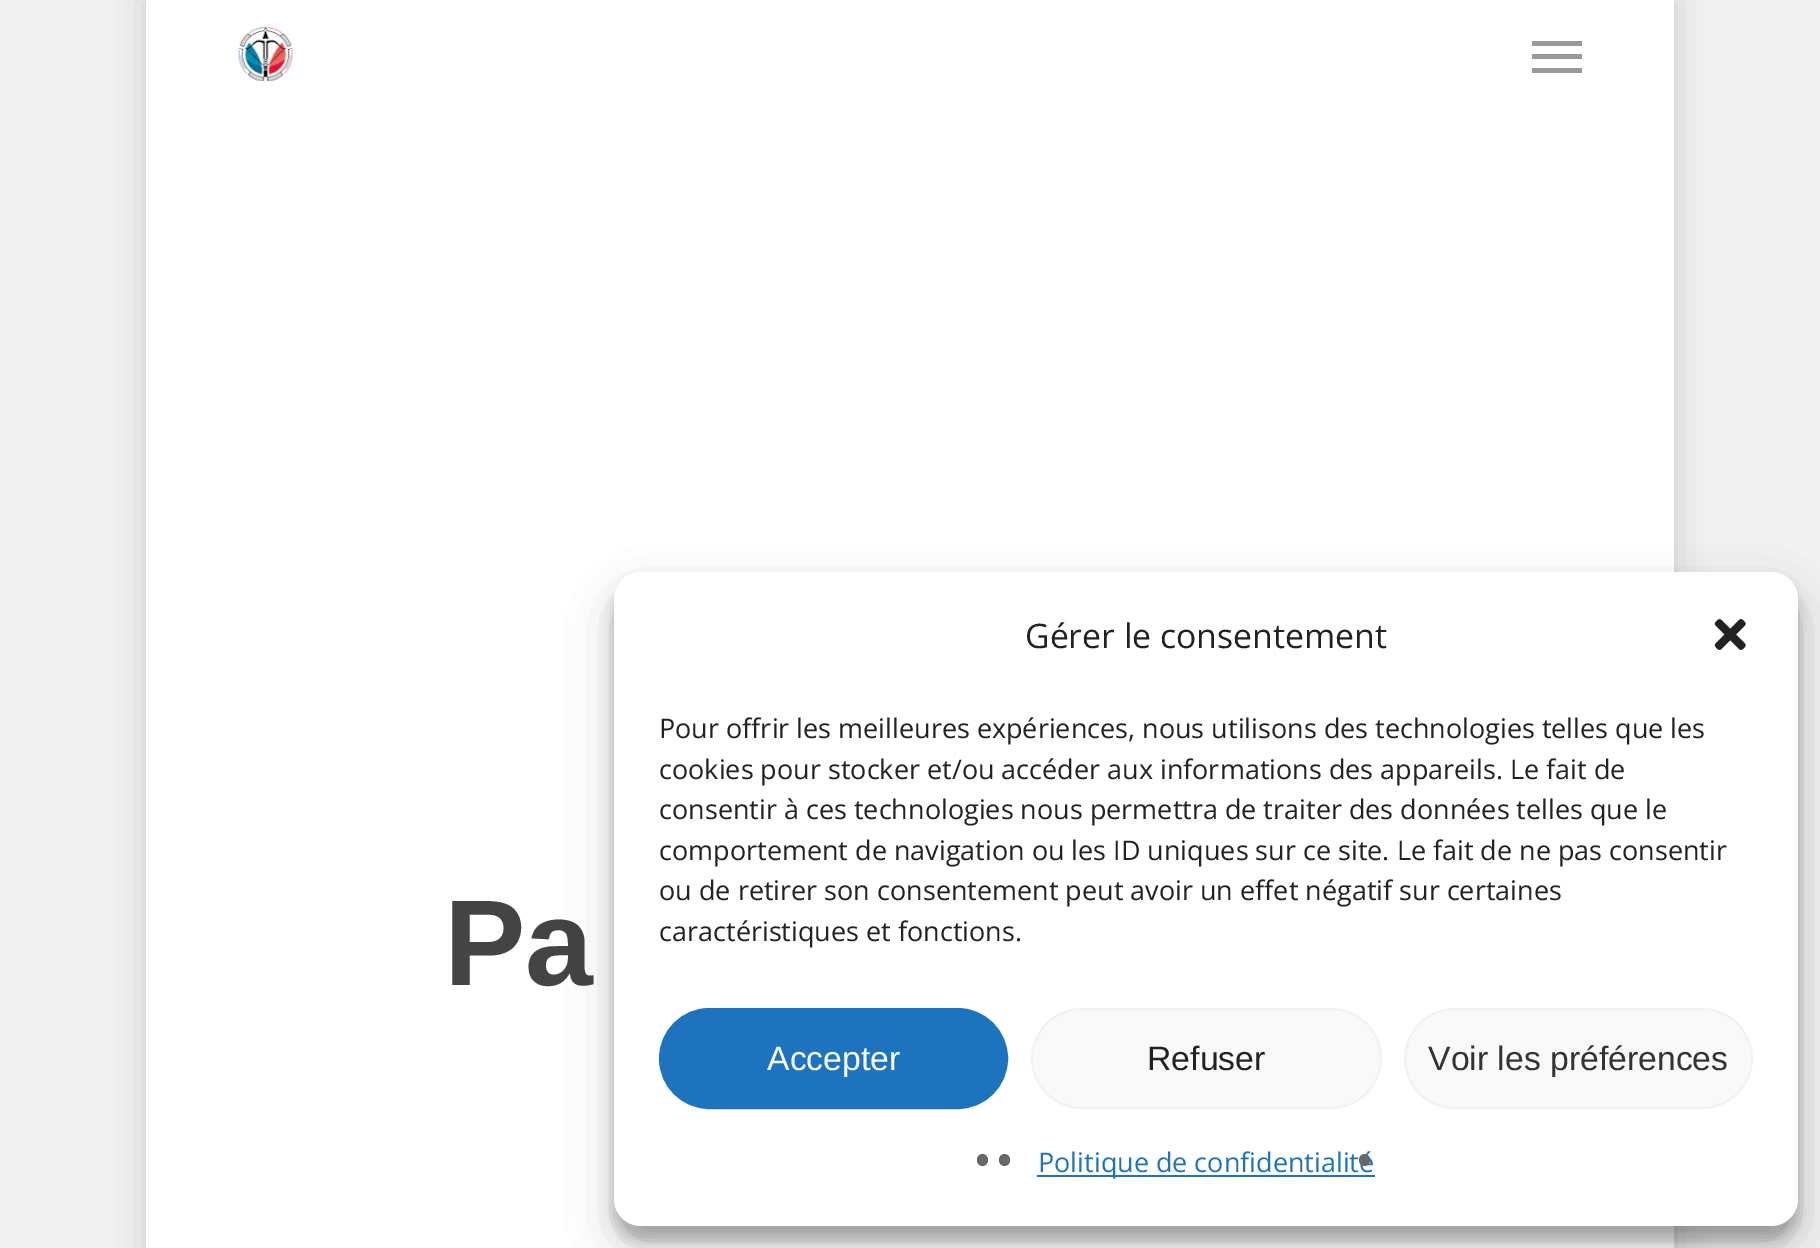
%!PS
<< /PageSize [1820 1248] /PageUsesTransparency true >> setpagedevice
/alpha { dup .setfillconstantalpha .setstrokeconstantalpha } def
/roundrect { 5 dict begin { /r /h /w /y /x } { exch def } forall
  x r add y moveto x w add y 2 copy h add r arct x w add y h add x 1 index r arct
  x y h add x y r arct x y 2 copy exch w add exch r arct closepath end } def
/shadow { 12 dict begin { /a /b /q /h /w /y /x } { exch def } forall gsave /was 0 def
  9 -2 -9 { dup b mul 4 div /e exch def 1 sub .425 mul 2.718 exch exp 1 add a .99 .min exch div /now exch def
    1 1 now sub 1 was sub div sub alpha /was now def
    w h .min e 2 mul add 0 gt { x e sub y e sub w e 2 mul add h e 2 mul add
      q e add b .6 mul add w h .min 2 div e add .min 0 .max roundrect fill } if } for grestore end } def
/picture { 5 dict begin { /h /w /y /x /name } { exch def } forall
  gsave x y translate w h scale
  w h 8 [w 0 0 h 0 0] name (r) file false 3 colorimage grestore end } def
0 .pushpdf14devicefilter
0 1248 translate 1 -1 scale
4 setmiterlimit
0.945 setgray
0 0 1820 1248 rectfill
0 setgray
146 0 1528 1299 0 17 0.15 shadow
1 setgray
146 0 1528 1248 rectfill
(img1.rgb) 238 27 55 54 picture
0.6 setgray
1532 41 50 5 rectfill
1532 68 50 5 rectfill
1532 54 50 5 rectfill
/LiberationSans-Bold [122 0 0 -122 0 0] selectfont
0.267 setgray
444 985 moveto (Pa) show
0 setgray
614 585 1184 655 27 7 0.23 shadow
614 594 1184 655 27 22.5 0.19 shadow
1 setgray
614 572 1184 654 27 roundrect fill
/OpenSans-Regular [33.75 0 0 -33.75 0 0] selectfont
0.133 setgray
1025 648 moveto (Gérer le consentement) show
(img2.rgb) 1714 619 32 31 picture
/OpenSans-Regular [27 0 0 -27 0 0] selectfont
659 738 moveto (Pour offrir les meilleures expériences, nous utilisons des technologies telles que les) show
659 779 moveto (cookies pour stocker et/ou accéder aux informations des appareils. Le fait de) show
659 819 moveto (consentir à ces technologies nous permettra de traiter des données telles que le) show
659 860 moveto (comportement de navigation ou les ID uniques sur ce site. Le fait de ne pas consentir) show
659 900 moveto (ou de retirer son consentement peut avoir un effet négatif sur certaines) show
659 941 moveto (caractéristiques et fonctions.) show
0.118 0.451 0.745 setrgbcolor
660 1009 347 99 49.5 roundrect gsave fill grestore
2 setlinewidth
stroke
/LiberationSans-Regular [33.75 0 0 -33.75 0 0] selectfont
1 setgray
767 1070 moveto (Accepter) show
0.976 setgray
1032 1009 349 99 49.5 roundrect gsave fill grestore
0.949 setgray
stroke
0.133 setgray
1147 1070 moveto (Refuser) show
0.976 setgray
1405 1009 347 99 49.5 roundrect gsave fill grestore
0.949 setgray
stroke
0.2 setgray
1428 1070 moveto (Voir les préférences) show
0.404 setgray
977 1154 11 12 5.5 roundrect fill
999 1154 11 12 5.5 roundrect fill
0.118 0.451 0.745 setrgbcolor
1037 1175 338 2 rectfill
/OpenSans-Regular [27 0 0 -27 0 0] selectfont
1038 1172 moveto (Politique de confidentialité) show
0.404 setgray
1359 1154 11 12 5.5 roundrect fill
.poppdf14devicefilter showpage
